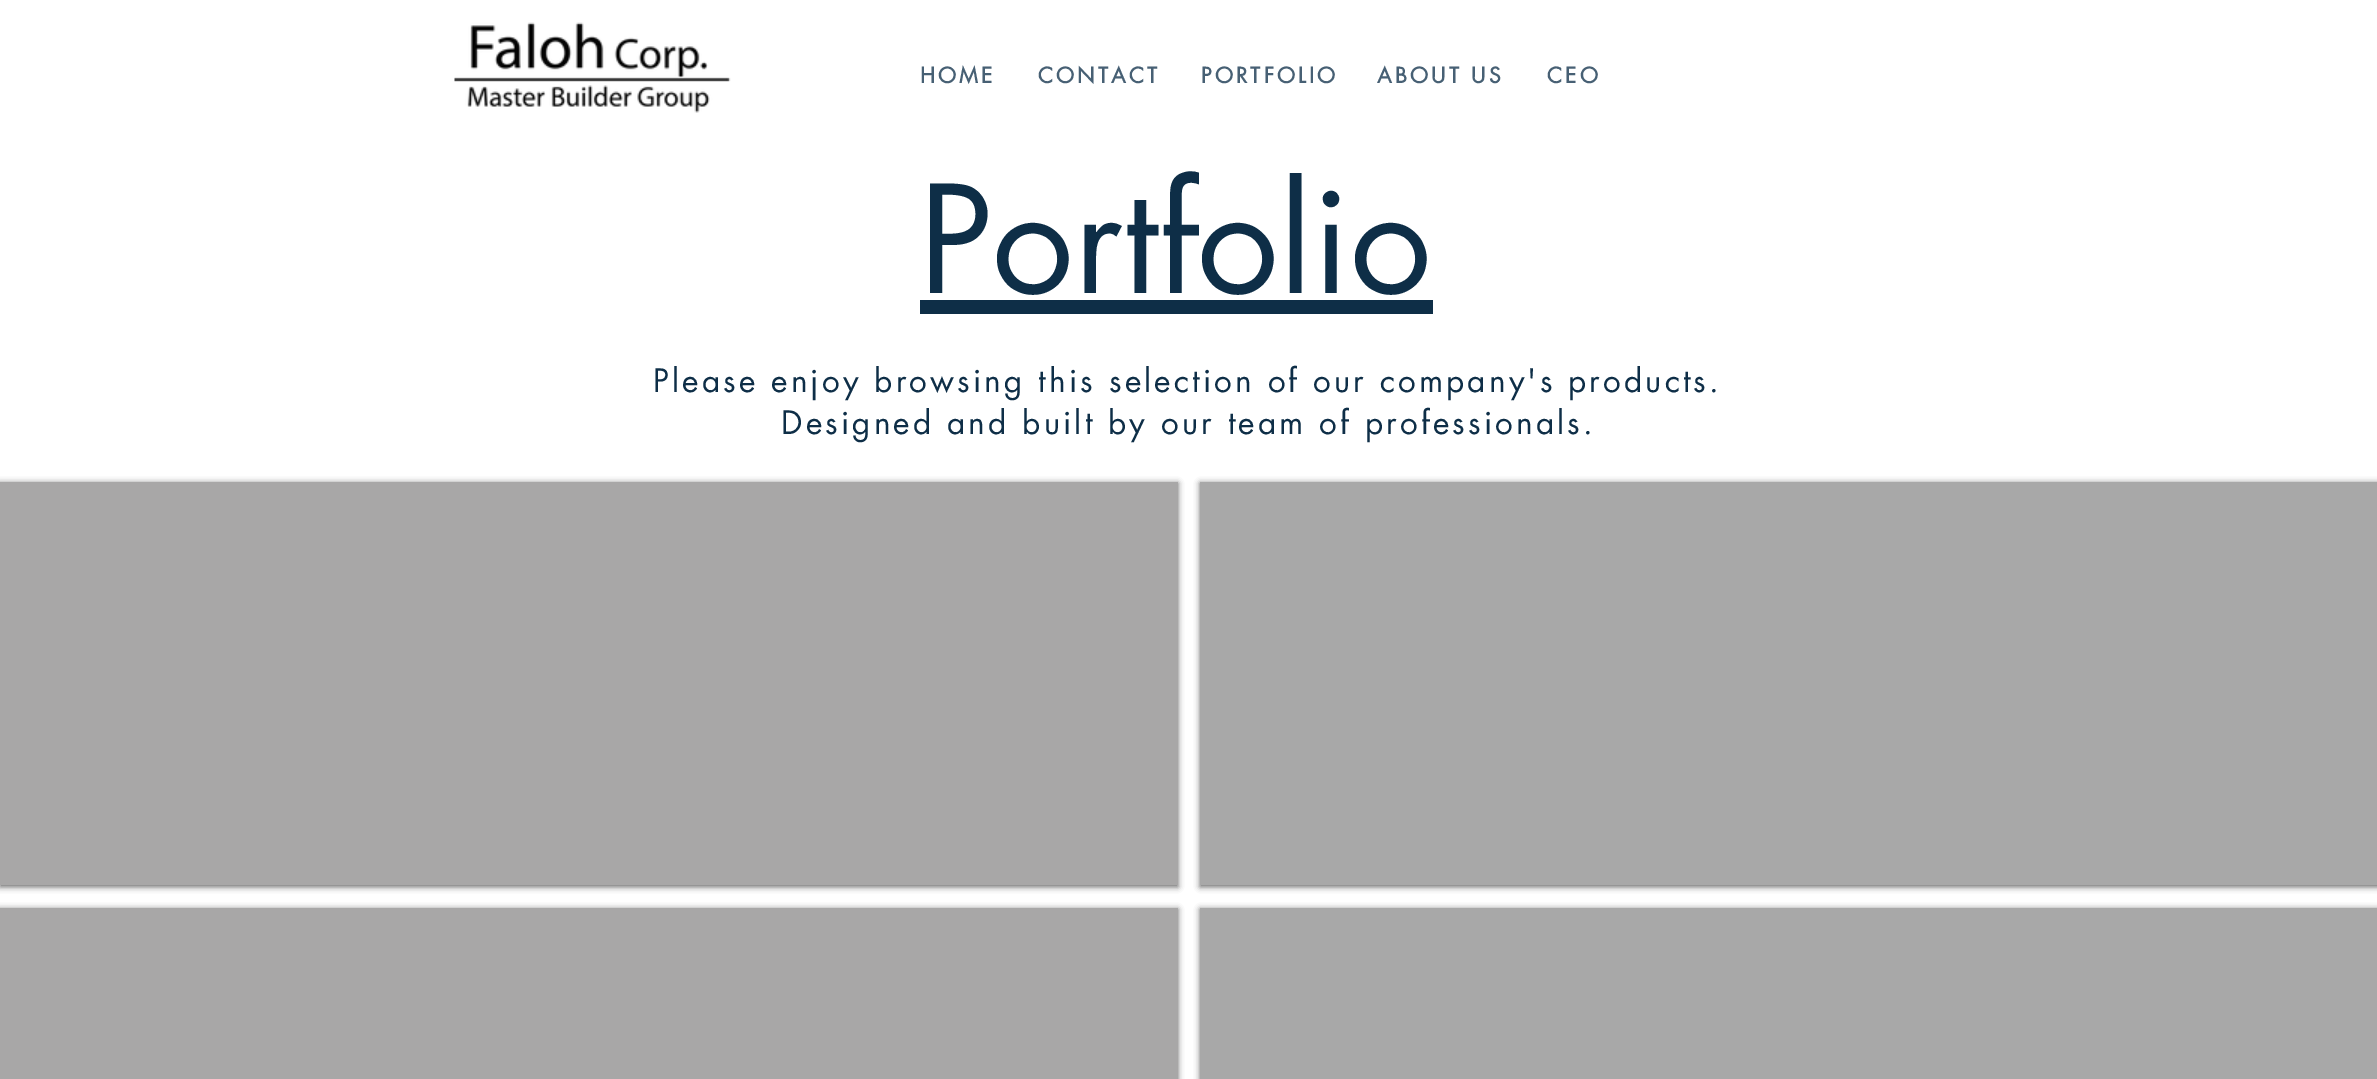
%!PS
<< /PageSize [2377 1079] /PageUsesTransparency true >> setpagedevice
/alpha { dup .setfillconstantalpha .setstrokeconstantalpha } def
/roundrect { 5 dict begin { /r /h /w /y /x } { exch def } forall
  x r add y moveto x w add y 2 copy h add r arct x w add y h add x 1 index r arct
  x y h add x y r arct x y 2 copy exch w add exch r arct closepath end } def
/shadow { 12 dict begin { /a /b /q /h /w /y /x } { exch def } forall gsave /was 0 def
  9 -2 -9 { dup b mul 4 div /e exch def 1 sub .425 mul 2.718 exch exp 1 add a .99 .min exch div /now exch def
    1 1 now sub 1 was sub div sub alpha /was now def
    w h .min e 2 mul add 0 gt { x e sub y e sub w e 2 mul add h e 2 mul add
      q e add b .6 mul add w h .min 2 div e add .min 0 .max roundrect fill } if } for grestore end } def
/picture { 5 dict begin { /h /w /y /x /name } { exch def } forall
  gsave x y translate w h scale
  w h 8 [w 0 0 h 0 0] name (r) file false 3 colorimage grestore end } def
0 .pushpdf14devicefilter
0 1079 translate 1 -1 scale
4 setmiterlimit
1 setgray
0 0 2377 1079 rectfill
(img1.rgb) 454 22 277 91 picture
/futura-Bold [21 0 0 -21 0 0] selectfont
0.278 0.376 0.455 setrgbcolor
920 83 moveto 3.15 0 (HOME) ashow
1038 83 moveto 3.15 0 (CONTACT) ashow
1201 83 moveto 3.15 0 (PORTFOLIO) ashow
1377 83 moveto 3.15 0 (ABOUT US) ashow
1547 83 moveto 3.15 0 (CEO) ashow
/futura-Regular [145.5 0 0 -145.5 0 0] selectfont
0.055 0.18 0.278 setrgbcolor
919 293 moveto (Portfolio) show
920 300 513 14 rectfill
/futura-Regular [31.5 0 0 -31.5 0 0] selectfont
653 392 moveto 3.15 0 (Please enjoy browsing this selection of our company's products.) ashow
781 434 moveto 3.15 0 (Designed and built by our team of professionals.) ashow
gsave
newpath 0 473 moveto 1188 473 lineto 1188 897 lineto 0 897 lineto closepath 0 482 moveto 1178 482 lineto 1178 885 lineto 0 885 lineto closepath eoclip newpath
0 setgray
0 483 1178 404 0 3 0.6 shadow
grestore
0.42 alpha
0.184 0.18 0.18 setrgbcolor
0 482 1178 403 rectfill
1 alpha
0 setgray
1200 483 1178 404 0 3 0.6 shadow
0.659 setgray
1200 482 1177 403 rectfill
gsave
newpath 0 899 moveto 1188 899 lineto 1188 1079 lineto 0 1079 lineto closepath 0 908 moveto 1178 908 lineto 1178 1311 lineto 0 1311 lineto closepath eoclip newpath
0 setgray
0 909 1178 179 0 3 0.6 shadow
grestore
0.42 alpha
0.184 0.18 0.18 setrgbcolor
0 908 1178 171 rectfill
1 alpha
0 setgray
1200 909 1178 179 0 3 0.6 shadow
0.659 setgray
1200 908 1177 171 rectfill
.poppdf14devicefilter showpage
